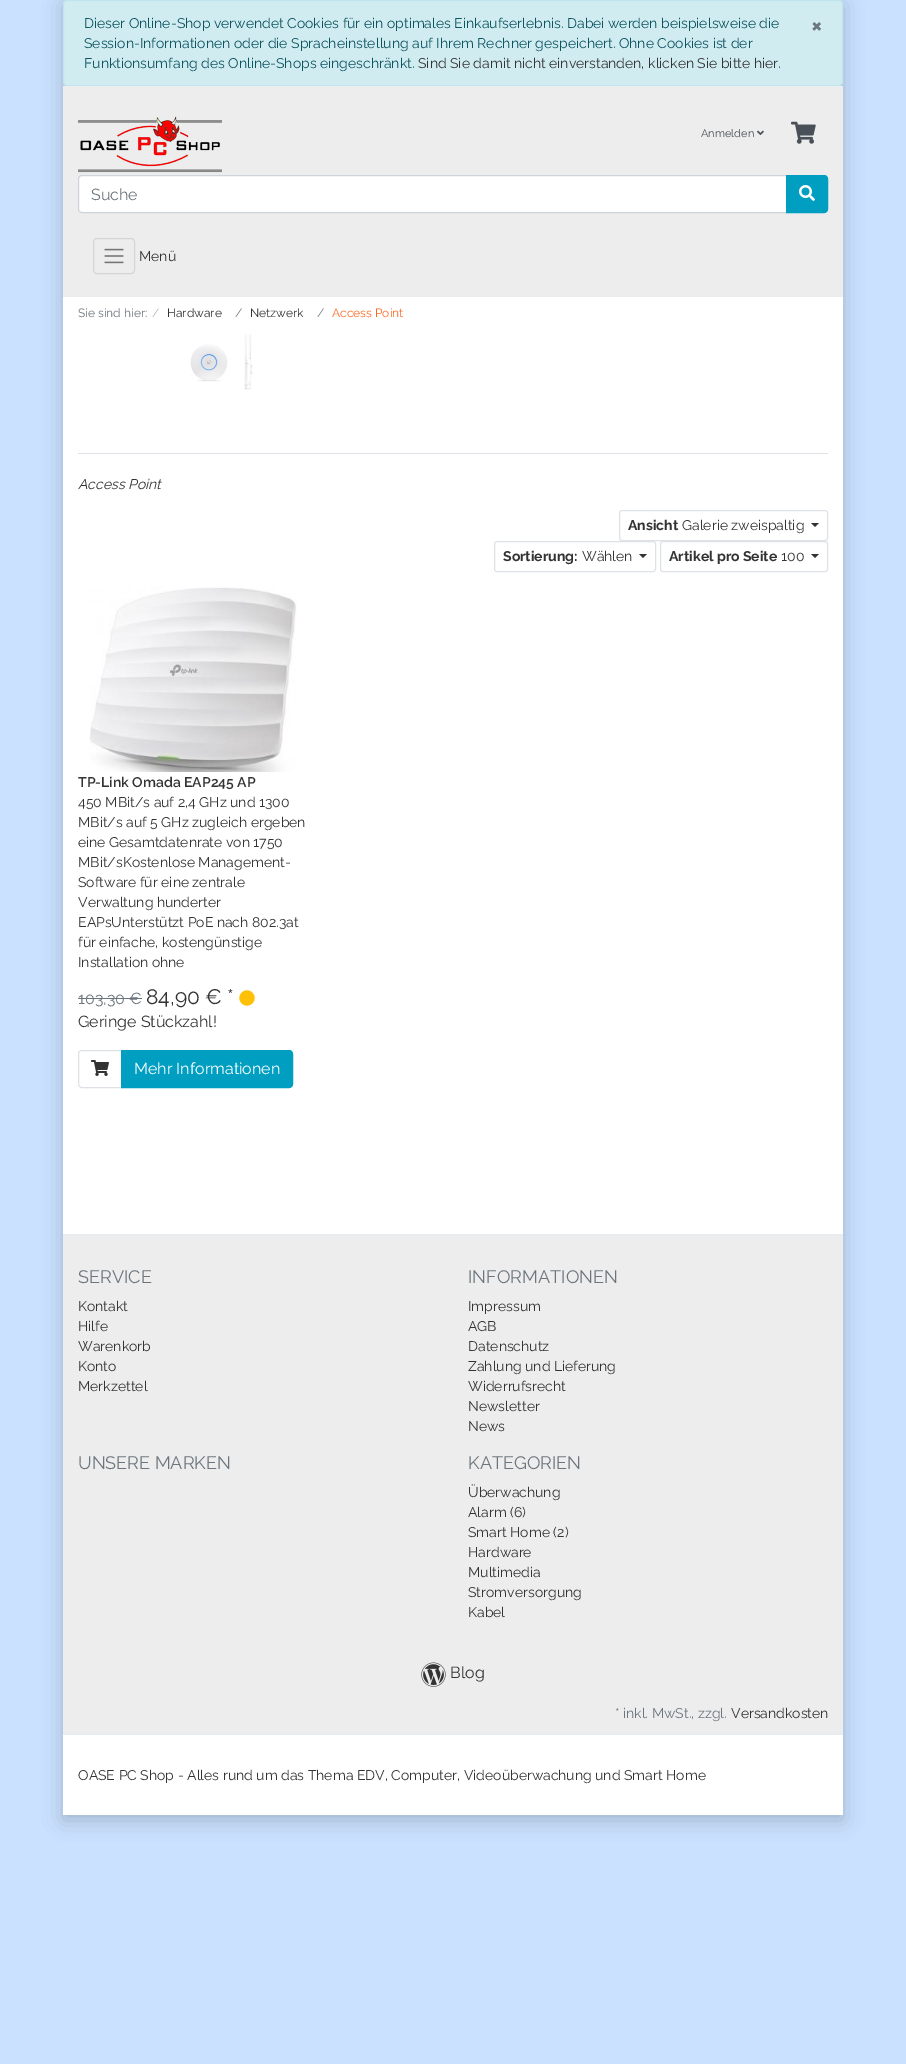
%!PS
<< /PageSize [906 2064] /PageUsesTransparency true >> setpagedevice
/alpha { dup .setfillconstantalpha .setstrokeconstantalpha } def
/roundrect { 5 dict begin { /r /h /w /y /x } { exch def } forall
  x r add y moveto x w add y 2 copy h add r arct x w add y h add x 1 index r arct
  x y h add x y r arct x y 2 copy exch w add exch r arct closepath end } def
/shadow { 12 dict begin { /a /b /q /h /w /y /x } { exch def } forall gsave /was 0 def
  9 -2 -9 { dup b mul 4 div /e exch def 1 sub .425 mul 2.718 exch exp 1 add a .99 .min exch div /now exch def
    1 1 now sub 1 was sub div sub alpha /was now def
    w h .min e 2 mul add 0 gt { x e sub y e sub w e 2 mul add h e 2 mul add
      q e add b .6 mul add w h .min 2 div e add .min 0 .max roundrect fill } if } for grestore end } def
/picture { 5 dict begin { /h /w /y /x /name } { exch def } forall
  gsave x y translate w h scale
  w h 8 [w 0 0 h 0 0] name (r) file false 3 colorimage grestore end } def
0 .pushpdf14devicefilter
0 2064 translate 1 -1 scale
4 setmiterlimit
0.792 0.882 1 setrgbcolor
0 0 906 2064 rectfill
0 setgray
63 5 780 1815 0 10 0.2 shadow
0.82 0.925 0.945 setrgbcolor
63.5 0.5 779 85 3.5 roundrect gsave fill grestore
0.745 0.898 0.922 setrgbcolor
stroke
/Raleway-Thin [14 0 0 -14 0 0] selectfont
0.047 0.329 0.376 setrgbcolor
84 28 moveto (Dieser Online-Shop verwendet Cookies für ein optimales Einkaufserlebnis. Dabei werden beispielsweise die) show
/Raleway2-Thin [24 0 0 -24 0 0] selectfont
0.424 0.459 0.49 setrgbcolor
811 33 moveto (×) show
/Raleway-Thin [14 0 0 -14 0 0] selectfont
0.047 0.329 0.376 setrgbcolor
84 48 moveto (Session-Informationen oder die Spracheinstellung auf Ihrem Rechner gespeichert. Ohne Cookies ist der) show
84 68 moveto (Funktionsumfang des Online-Shops eingeschränkt.) show
0.2 setgray
418 68 moveto (Sind Sie damit nicht einverstanden, klicken Sie bitte hier.) show
0.929 setgray
63 86 780 211 rectfill
(img1.rgb) 78 116 144 57 picture
/Raleway-Thin [11 0 0 -11 0 0] selectfont
0.286 0.314 0.341 setrgbcolor
701 137 moveto (Anmelden) show
(img2.rgb) 757 130 7 5 picture
(img3.rgb) 791 121 25 23 picture
1 setgray
newpath 82 175.5 moveto 786.5 175.5 lineto 786.5 212.5 lineto 82 212.5 lineto 80 212.5 78.5 211 78.5 209 curveto 78.5 179 lineto 78.5 177 80 175.5 82 175.5 curveto closepath gsave fill grestore
0.808 0.831 0.855 setrgbcolor
stroke
/Raleway-Thin [16 0 0 -16 0 0] selectfont
0.424 0.459 0.49 setrgbcolor
91 200 moveto (Suche) show
0 0.62 0.753 setrgbcolor
newpath 786.5 175.5 moveto 824 175.5 lineto 826 175.5 827.5 177 827.5 179 curveto 827.5 209 lineto 827.5 211 826 212.5 824 212.5 curveto 786.5 212.5 lineto closepath gsave fill grestore
stroke
(img4.rgb) 799 185 16 16 picture
0.835 setgray
93.5 238.5 41 35 3.5 roundrect stroke
(img5.rgb) 104 248 20 16 picture
/Raleway-Thin [14 0 0 -14 0 0] selectfont
0.2 setgray
139 261 moveto (Menü) show
1 setgray
63 297 780 937 rectfill
/Raleway-Thin [12 0 0 -12 0 0] selectfont
0.424 0.459 0.49 setrgbcolor
78 317 moveto (Sie sind hier:) show
0.678 0.71 0.741 setrgbcolor
152 317 moveto (/) show
0.2 setgray
167 317 moveto (Hardware) show
0.424 0.459 0.49 setrgbcolor
235 317 moveto (/) show
0.2 setgray
250 317 moveto (Netzwerk) show
0.424 0.459 0.49 setrgbcolor
317 317 moveto (/) show
0.988 0.4 0.129 setrgbcolor
332 317 moveto (Access Point) show
(img6.rgb) 190 334 63 56 picture
0.871 0.886 0.902 setrgbcolor
78 453 750 1 rectfill
/Raleway-ThinItalic [14 0 0 -14 0 0] selectfont
0.2 setgray
78 489 moveto (Access Point) show
0.871 0.886 0.902 setrgbcolor
619.5 510.5 208 30 2.5 roundrect stroke
/Raleway2-Thin [14 0 0 -14 0 0] selectfont
0.2 setgray
628 530 moveto (Ansicht) show
/Raleway-Thin [14 0 0 -14 0 0] selectfont
682 530 moveto (Galerie zweispaltig) show
newpath 811 523 moveto 819 523 lineto 815 527 lineto closepath fill
0.871 0.886 0.902 setrgbcolor
494.5 541.5 161 30 2.5 roundrect stroke
/Raleway2-Thin [14 0 0 -14 0 0] selectfont
0.2 setgray
503 561 moveto (Sortierung:) show
/Raleway-Thin [14 0 0 -14 0 0] selectfont
582 561 moveto (Wählen) show
newpath 639 554 moveto 647 554 lineto 643 558 lineto closepath fill
0.871 0.886 0.902 setrgbcolor
660.5 541.5 167 30 2.5 roundrect stroke
/Raleway2-Thin [14 0 0 -14 0 0] selectfont
0.2 setgray
669 561 moveto (Artikel pro Seite) show
/Raleway-Thin [14 0 0 -14 0 0] selectfont
781 561 moveto (100) show
newpath 811 554 moveto 819 554 lineto 815 558 lineto closepath fill
(img7.rgb) 90 587 207 185 picture
/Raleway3-Thin [14 0 0 -14 0 0] selectfont
78 787 moveto (TP-Link Omada EAP245 AP) show
/Raleway-Thin [14 0 0 -14 0 0] selectfont
78 807 moveto (450 MBit/s auf 2,4 GHz und 1300) show
78 827 moveto (MBit/s auf 5 GHz zugleich ergeben) show
78 847 moveto (eine Gesamtdatenrate von 1750) show
78 867 moveto (MBit/sKostenlose Management-) show
78 887 moveto (Software für eine zentrale) show
78 907 moveto (Verwaltung hunderter) show
78 927 moveto (EAPsUnterstützt PoE nach 802.3at) show
78 947 moveto (für einfache, kostengünstige) show
78 967 moveto (Installation ohne) show
/Raleway-Thin [16 0 0 -16 0 0] selectfont
0.424 0.459 0.49 setrgbcolor
78 1004 moveto (103,30 €) show
78 998 64 1 rectfill
/Raleway-Thin [21 0 0 -21 0 0] selectfont
0.2 setgray
146 1004 moveto (84,90 € *) show
(img8.rgb) 239 990 16 16 picture
/Raleway-Thin [16 0 0 -16 0 0] selectfont
78 1027 moveto (Geringe Stückzahl!) show
0.871 0.886 0.902 setrgbcolor
newpath 82 1050.5 moveto 121.5 1050.5 lineto 121.5 1087.5 lineto 82 1087.5 lineto 80 1087.5 78.5 1086 78.5 1084 curveto 78.5 1054 lineto 78.5 1052 80 1050.5 82 1050.5 curveto closepath stroke
(img9.rgb) 91 1060 18 16 picture
0 0.62 0.753 setrgbcolor
newpath 121.5 1050.5 moveto 289 1050.5 lineto 291 1050.5 292.5 1052 292.5 1054 curveto 292.5 1084 lineto 292.5 1086 291 1087.5 289 1087.5 curveto 121.5 1087.5 lineto closepath gsave fill grestore
stroke
1 setgray
134 1074 moveto (Mehr Informationen) show
0.929 setgray
63 1236 780 497 rectfill
0.914 0.925 0.937 setrgbcolor
63 1234 780 2 rectfill
63 1733 780 2 rectfill
/Raleway-Thin [18 0 0 -18 0 0] selectfont
0.424 0.459 0.49 setrgbcolor
78 1283 moveto (SERVICE) show
/Raleway-Thin [14 0 0 -14 0 0] selectfont
0.2 setgray
78 1311 moveto (Kontakt) show
78 1331 moveto (Hilfe) show
78 1351 moveto (Warenkorb) show
78 1371 moveto (Konto) show
78 1391 moveto (Merkzettel) show
/Raleway-Thin [18 0 0 -18 0 0] selectfont
0.424 0.459 0.49 setrgbcolor
468 1283 moveto (INFORMATIONEN) show
/Raleway-Thin [14 0 0 -14 0 0] selectfont
0.2 setgray
468 1311 moveto (Impressum) show
468 1331 moveto (AGB) show
468 1351 moveto (Datenschutz) show
468 1371 moveto (Zahlung und Lieferung) show
468 1391 moveto (Widerrufsrecht) show
468 1411 moveto (Newsletter) show
468 1431 moveto (News) show
/Raleway-Thin [18 0 0 -18 0 0] selectfont
0.424 0.459 0.49 setrgbcolor
78 1469 moveto (UNSERE MARKEN) show
468 1469 moveto (KATEGORIEN) show
/Raleway-Thin [14 0 0 -14 0 0] selectfont
0.2 setgray
468 1497 moveto (Überwachung) show
468 1517 moveto (Alarm \(6\)) show
468 1537 moveto (Smart Home \(2\)) show
468 1557 moveto (Hardware) show
468 1577 moveto (Multimedia) show
468 1597 moveto (Stromversorgung) show
468 1617 moveto (Kabel) show
(img10.rgb) 421 1662 25 25 picture
/Raleway-Thin [16 0 0 -16 0 0] selectfont
450 1678 moveto (Blog) show
/Raleway-Thin [14 0 0 -14 0 0] selectfont
0.424 0.459 0.49 setrgbcolor
615 1718 moveto (* inkl. MwSt., zzgl.) show
0.2 setgray
731 1718 moveto (Versandkosten) show
1 setgray
63 1735 780 80 rectfill
0.2 setgray
78 1780 moveto (OASE PC Shop - Alles rund um das Thema EDV, Computer, Videoüberwachung und Smart Home) show
.poppdf14devicefilter showpage
